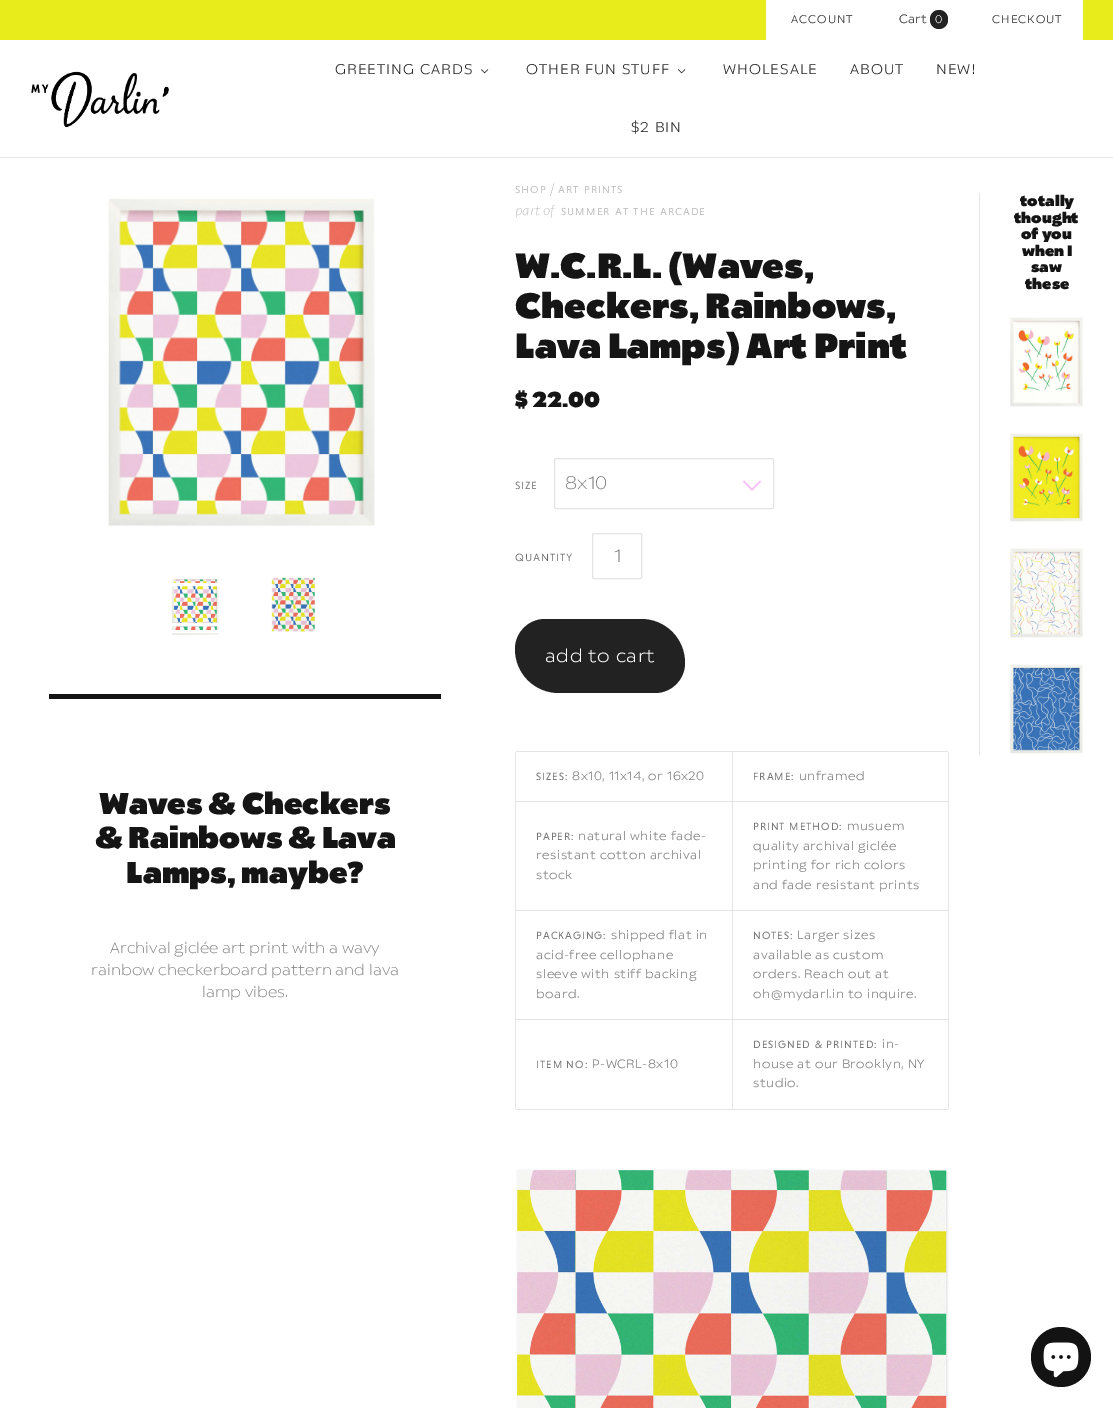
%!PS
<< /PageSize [1113 1408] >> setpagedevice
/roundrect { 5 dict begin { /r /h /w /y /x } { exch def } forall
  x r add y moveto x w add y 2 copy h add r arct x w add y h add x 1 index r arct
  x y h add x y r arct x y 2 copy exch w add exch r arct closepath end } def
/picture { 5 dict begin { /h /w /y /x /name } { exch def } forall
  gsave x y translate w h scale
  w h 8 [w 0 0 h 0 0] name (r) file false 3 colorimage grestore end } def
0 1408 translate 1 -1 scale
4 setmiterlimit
1 setgray
0 0 1113 1408 rectfill
0.914 0.925 0.106 setrgbcolor
0 0 1113 40 rectfill
1 setgray
766 0 317 40 rectfill
/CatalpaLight-Light [11 0 0 -11 0 0] selectfont
0.141 setgray
791 23 moveto 1 0 (ACCOUNT) ashow
/CatalpaLight-Light [12 0 0 -12 0 0] selectfont
899 23 moveto (Cart) show
0.133 setgray
930 10 18 19 9 roundrect fill
/CatalpaLight-Light [11 0 0 -11 0 0] selectfont
1 setgray
935 23 moveto 1 0 (0) ashow
0.141 setgray
992 23 moveto 1 0 (CHECKOUT) ashow
0.898 0.894 0.894 setrgbcolor
0 157 1113 1 rectfill
(img1.rgb) 31 71 138 57 picture
/CatalpaLight-Light [14 0 0 -14 0 0] selectfont
0.141 setgray
335 74 moveto 1 0 (GREETING CARDS) ashow
(img2.rgb) 481 69 8 5 picture
526 74 moveto 1 0 (OTHER FUN STUFF) ashow
(img2.rgb) 678 69 8 5 picture
723 74 moveto 1 0 (WHOLESALE) ashow
850 74 moveto 1 0 (ABOUT) ashow
936 74 moveto 1 0 (NEW!) ashow
631 132 moveto 1 0 ($2 BIN) ashow
(img3.rgb) 108 198 267 329 picture
(img4.rgb) 171 579 48 56 picture
1 setgray
3 setlinewidth
160.5 577.5 71 54 rectstroke
167.5 584.5 57 40 rectstroke
(img5.rgb) 271 577 44 55 picture
0.075 setgray
49 694 392 5 rectfill
/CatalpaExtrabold-ExtraBold [30 0 0 -30 0 0] selectfont
0.082 setgray
99 814 moveto (Waves & Checkers) show
95 848 moveto (& Rainbows & Lava) show
126 883 moveto (Lamps, maybe?) show
/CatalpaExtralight-ExtraLight [15 0 0 -15 0 0] selectfont
0.471 setgray
110 953 moveto (Archival giclée art print with a wavy) show
91 975 moveto (rainbow checkerboard pattern and lava) show
202 997 moveto (lamp vibes.) show
/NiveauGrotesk-Light [13.5 0 0 -13.5 0 0] selectfont
0.71 setgray
515 193 moveto 1 0 (shop) ashow
/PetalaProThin-ThinItalic [13.5 0 0 -13.5 0 0] selectfont
550 193 moveto (/) show
/NiveauGrotesk-Light [13.5 0 0 -13.5 0 0] selectfont
558 193 moveto 1 0 (art prints) ashow
/PetalaProThin-ThinItalic [13.5 0 0 -13.5 0 0] selectfont
515 215 moveto (part of) show
/NiveauGrotesk-Light [13.5 0 0 -13.5 0 0] selectfont
561 215 moveto 1 0 (summer at the arcade) ashow
/CatalpaExtrabold-ExtraBold [35 0 0 -35 0 0] selectfont
0.082 setgray
515 278 moveto (W.C.R.L. \(Waves,) show
515 318 moveto (Checkers, Rainbows,) show
515 358 moveto (Lava Lamps\) Art Print) show
/CatalpaExtrabold-ExtraBold [21.5 0 0 -21.5 0 0] selectfont
515 407 moveto ($ 22.00) show
/NiveauGrotesk-Light [14 0 0 -14 0 0] selectfont
0.416 setgray
515 489 moveto 0.75 0 (size) ashow
0.898 0.894 0.894 setrgbcolor
1 setlinewidth
554.5 458.5 219 50 1.5 roundrect stroke
/CatalpaExtralight-ExtraLight [18 0 0 -18 0 0] selectfont
0.471 setgray
565 489 moveto (8x10) show
(img6.rgb) 743 480 18 11 picture
/NiveauGrotesk-Light [14 0 0 -14 0 0] selectfont
0.416 setgray
515 561 moveto 0.75 0 (quantity) ashow
0.898 0.894 0.894 setrgbcolor
592.5 533.5 49 45 1.5 roundrect stroke
/CatalpaExtralight-ExtraLight [18 0 0 -18 0 0] selectfont
0.471 setgray
614 562 moveto (1) show
0.133 setgray
newpath 545 619 moveto 641 619 lineto 665.5 619 685 638.5 685 663 curveto 685 679.5 671.5 693 655 693 curveto 559 693 lineto 534.5 693 515 673.5 515 649 curveto 515 632.5 528.5 619 545 619 curveto closepath fill
/CatalpaLight-Light [18 0 0 -18 0 0] selectfont
1 setgray
545 662 moveto 0.5 0 (add to cart) ashow
0.898 0.894 0.894 setrgbcolor
948 752 1 357 rectfill
516 1109 432 1 rectfill
515 752 1 357 rectfill
516 751 432 1 rectfill
/NiveauGrotesk-Regular [10.75 0 0 -10.75 0 0] selectfont
0.471 setgray
536 780 moveto 1 0 (SIZES:) ashow
/CatalpaLight-Light [12 0 0 -12 0 0] selectfont
572 780 moveto 0.5 0 (8x10, 11x14, or 16x20) ashow
0.898 0.894 0.894 setrgbcolor
732 751 1 50 rectfill
/NiveauGrotesk-Regular [10.75 0 0 -10.75 0 0] selectfont
0.471 setgray
753 780 moveto 1 0 (FRAME:) ashow
/CatalpaLight-Light [12 0 0 -12 0 0] selectfont
799 780 moveto 0.5 0 (unframed) ashow
0.898 0.894 0.894 setrgbcolor
516 801 432 1 rectfill
/NiveauGrotesk-Regular [10.75 0 0 -10.75 0 0] selectfont
0.471 setgray
536 840 moveto 1 0 (PAPER:) ashow
/CatalpaLight-Light [12 0 0 -12 0 0] selectfont
578 840 moveto 0.5 0 (natural white fade-) ashow
536 859 moveto 0.5 0 (resistant cotton archival) ashow
536 879 moveto 0.5 0 (stock) ashow
0.898 0.894 0.894 setrgbcolor
732 801 1 109 rectfill
/NiveauGrotesk-Regular [10.75 0 0 -10.75 0 0] selectfont
0.471 setgray
753 830 moveto 1 0 (PRINT METHOD:) ashow
/CatalpaLight-Light [12 0 0 -12 0 0] selectfont
847 830 moveto 0.5 0 (musuem) ashow
753 850 moveto 0.5 0 (quality archival giclée) ashow
753 869 moveto 0.5 0 (printing for rich colors) ashow
753 889 moveto 0.5 0 (and fade resistant prints) ashow
0.898 0.894 0.894 setrgbcolor
516 910 432 1 rectfill
/NiveauGrotesk-Regular [10.75 0 0 -10.75 0 0] selectfont
0.471 setgray
536 939 moveto 1 0 (PACKAGING:) ashow
/CatalpaLight-Light [12 0 0 -12 0 0] selectfont
611 939 moveto 0.5 0 (shipped flat in) ashow
536 959 moveto 0.5 0 (acid-free cellophane) ashow
536 978 moveto 0.5 0 (sleeve with stiff backing) ashow
536 998 moveto 0.5 0 (board.) ashow
0.898 0.894 0.894 setrgbcolor
732 910 1 109 rectfill
/NiveauGrotesk-Regular [10.75 0 0 -10.75 0 0] selectfont
0.471 setgray
753 939 moveto 1 0 (NOTES:) ashow
/CatalpaLight-Light [12 0 0 -12 0 0] selectfont
797 939 moveto 0.5 0 (Larger sizes) ashow
753 959 moveto 0.5 0 (available as custom) ashow
753 978 moveto 0.5 0 (orders. Reach out at) ashow
753 998 moveto 0.5 0 (oh@mydarl.in to inquire.) ashow
0.898 0.894 0.894 setrgbcolor
516 1019 432 1 rectfill
/NiveauGrotesk-Regular [10.75 0 0 -10.75 0 0] selectfont
0.471 setgray
536 1068 moveto 1 0 (ITEM NO:) ashow
/CatalpaLight-Light [12 0 0 -12 0 0] selectfont
592 1068 moveto 0.5 0 (P-WCRL-8x10) ashow
0.898 0.894 0.894 setrgbcolor
732 1019 1 90 rectfill
/NiveauGrotesk-Regular [10.75 0 0 -10.75 0 0] selectfont
0.471 setgray
753 1048 moveto 1 0 (DESIGNED & PRINTED:) ashow
/CatalpaLight-Light [12 0 0 -12 0 0] selectfont
882 1048 moveto 0.5 0 (in-) ashow
753 1068 moveto 0.5 0 (house at our Brooklyn, NY) ashow
753 1087 moveto 0.5 0 (studio.) ashow
(img7.rgb) 515 1168 434 240 picture
0.898 0.894 0.894 setrgbcolor
979 193 1 562 rectfill
/CatalpaExtrabold-ExtraBold [15 0 0 -15 0 0] selectfont
0.082 setgray
1020 206 moveto (totally) show
1014 223 moveto (thought) show
1021 239 moveto (of you) show
1022 256 moveto (when I) show
1031 272 moveto (saw) show
1025 289 moveto (these) show
(img8.rgb) 1010 317 73 90 picture
(img9.rgb) 1010 433 73 89 picture
(img10.rgb) 1010 548 73 90 picture
(img11.rgb) 1010 664 73 90 picture
0.075 setgray
newpath 1061 1357 30 0 360 arc closepath fill
(img12.rgb) 1043 1342 36 36 picture
showpage
